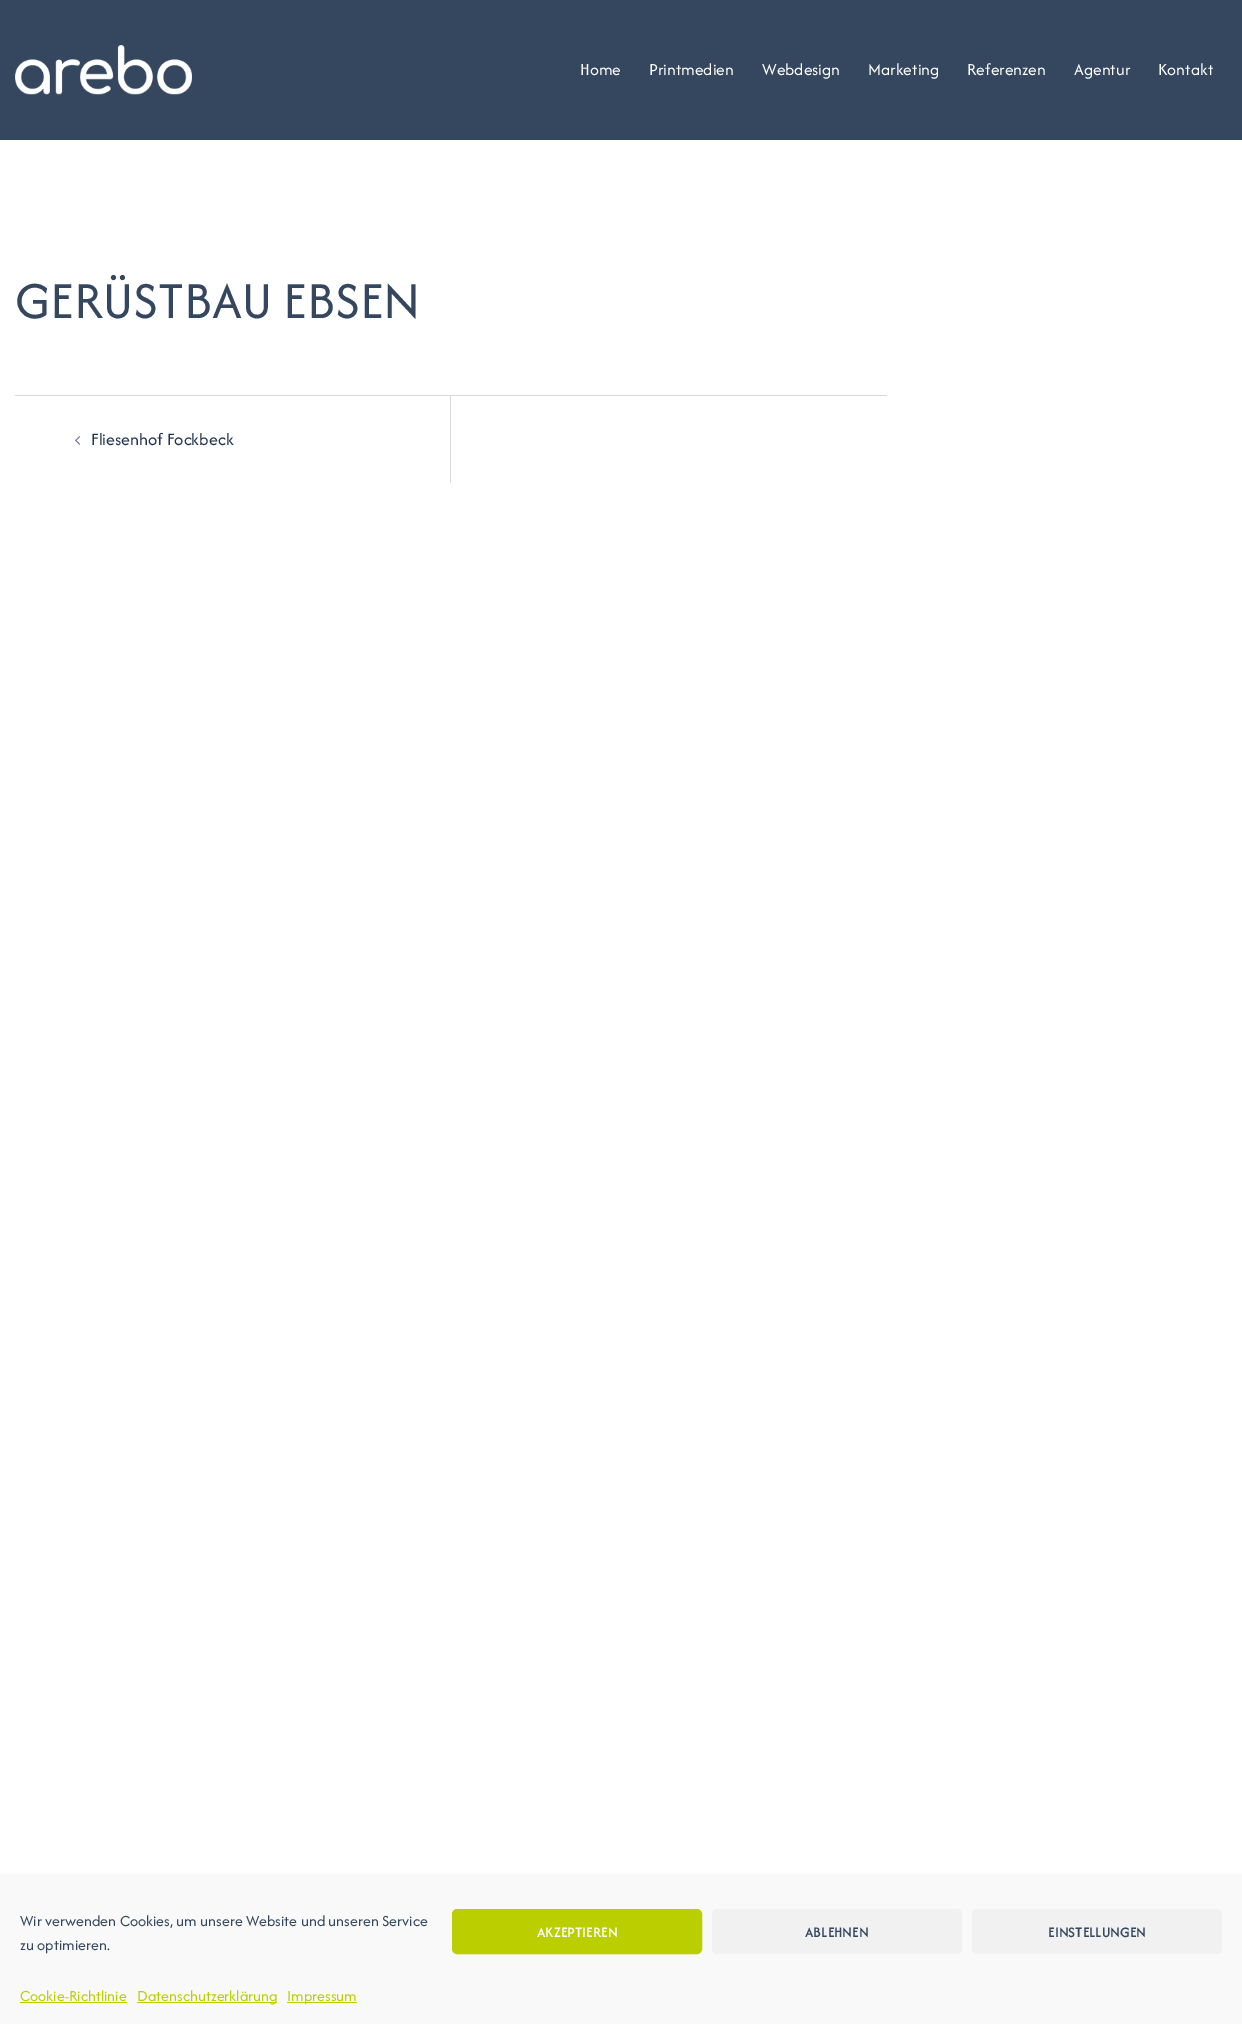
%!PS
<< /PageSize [1242 2024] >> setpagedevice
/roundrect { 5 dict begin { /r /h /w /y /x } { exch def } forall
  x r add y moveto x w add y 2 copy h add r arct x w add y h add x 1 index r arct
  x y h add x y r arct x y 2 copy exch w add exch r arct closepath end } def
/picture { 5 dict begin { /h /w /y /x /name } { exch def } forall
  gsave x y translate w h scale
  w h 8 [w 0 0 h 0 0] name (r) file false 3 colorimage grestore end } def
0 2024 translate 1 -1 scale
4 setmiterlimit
1 setgray
0 0 1242 2024 rectfill
0.208 0.278 0.369 setrgbcolor
0 0 1242 140 rectfill
(img1.rgb) 15 45 177 50 picture
/Afacad-Regular [17.5 0 0 -17.5 0 0] selectfont
1 setgray
580 75 moveto (Home) show
649 75 moveto (Printmedien) show
762 75 moveto (Webdesign) show
868 75 moveto (Marketing) show
967 75 moveto (Referenzen) show
1074 75 moveto (Agentur) show
1158 75 moveto (Kontakt) show
/Afacad-Regular [54 0 0 -54 0 0] selectfont
0.208 0.278 0.369 setrgbcolor
15 318 moveto (GERÜSTBAU EBSEN) show
0.859 setgray
15 395 872 1 rectfill
450 396 1 87 rectfill
(img2.rgb) 75 436 6 9 picture
/Afacad-Regular [18 0 0 -18 0 0] selectfont
0.137 0.204 0.322 setrgbcolor
91 445 moveto (Fliesenhof Fockbeck) show
0.976 setgray
0 1874 1242 150 rectfill
/Afacad-Regular [16 0 0 -16 0 0] selectfont
0.208 0.278 0.369 setrgbcolor
20 1926 moveto (Wir verwenden Cookies, um unsere Website und unseren Service) show
20 1950 moveto (zu optimieren.) show
0.733 0.808 0 setrgbcolor
452.5 1909.5 249 44 4.5 roundrect gsave fill grestore
stroke
/Afacad-Medium [15 0 0 -15 0 0] selectfont
1 setgray
537 1937 moveto (AKZEPTIEREN) show
0.945 setgray
712 1909 250 45 5 roundrect fill
0.208 0.278 0.369 setrgbcolor
805 1937 moveto (ABLEHNEN) show
0.945 setgray
972 1909 250 45 5 roundrect fill
0.208 0.278 0.369 setrgbcolor
1048 1937 moveto (EINSTELLUNGEN) show
/Afacad-Regular [16 0 0 -16 0 0] selectfont
0.733 0.808 0 setrgbcolor
20 2001 moveto (Cookie-Richtlinie) show
20 2002 107 1 rectfill
137 2002 140 1 rectfill
137 2001 moveto (Datenschutzerklärung) show
287 2002 70 1 rectfill
287 2001 moveto (Impressum) show
showpage
